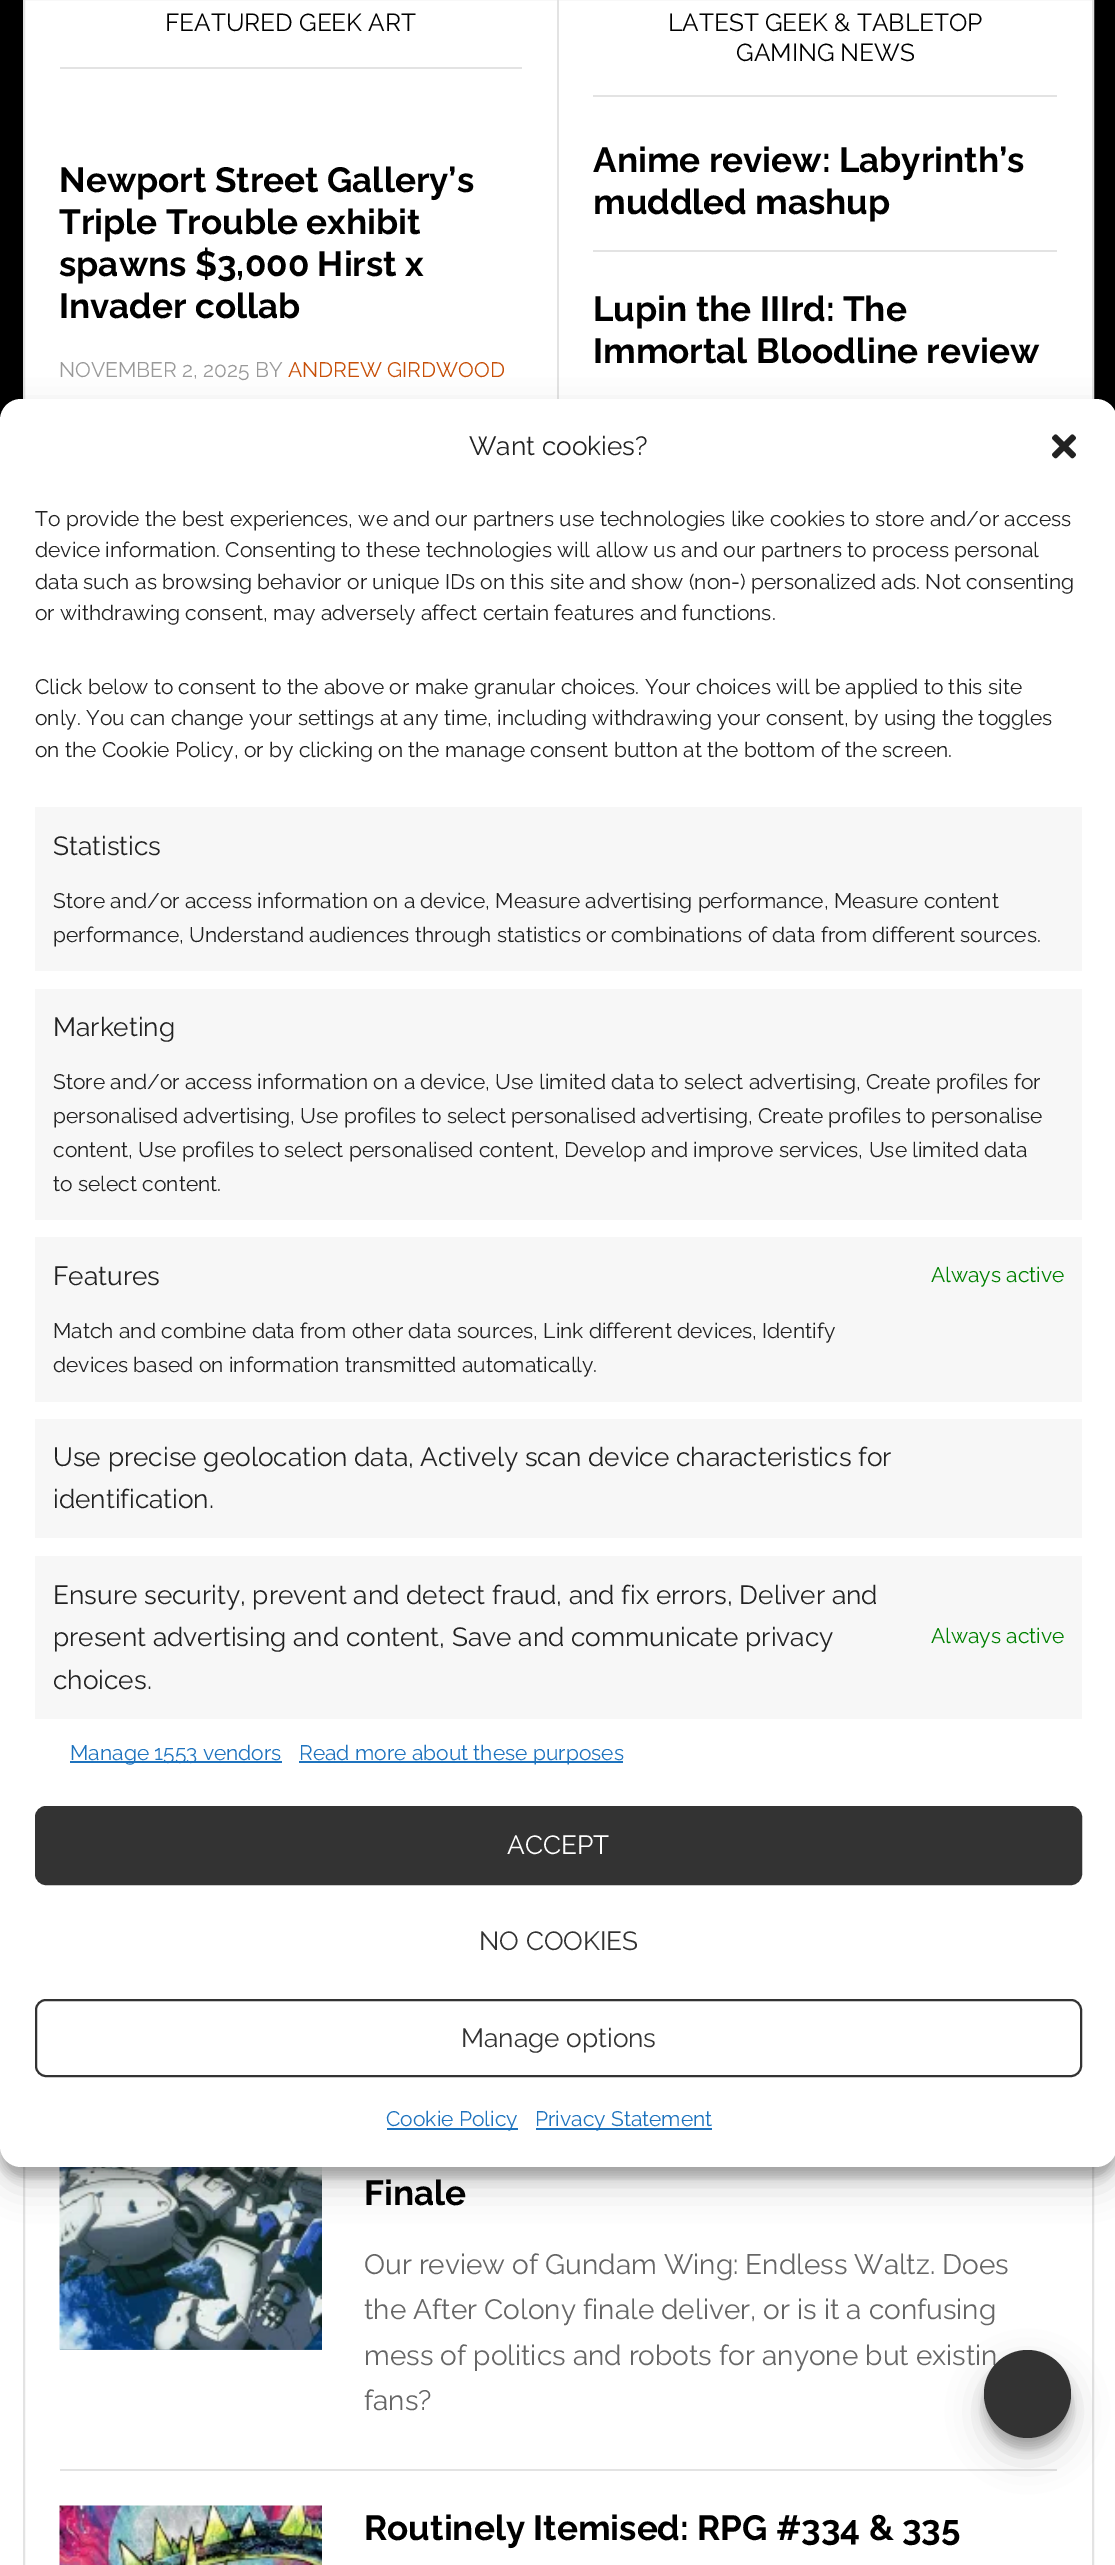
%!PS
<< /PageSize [1115 2565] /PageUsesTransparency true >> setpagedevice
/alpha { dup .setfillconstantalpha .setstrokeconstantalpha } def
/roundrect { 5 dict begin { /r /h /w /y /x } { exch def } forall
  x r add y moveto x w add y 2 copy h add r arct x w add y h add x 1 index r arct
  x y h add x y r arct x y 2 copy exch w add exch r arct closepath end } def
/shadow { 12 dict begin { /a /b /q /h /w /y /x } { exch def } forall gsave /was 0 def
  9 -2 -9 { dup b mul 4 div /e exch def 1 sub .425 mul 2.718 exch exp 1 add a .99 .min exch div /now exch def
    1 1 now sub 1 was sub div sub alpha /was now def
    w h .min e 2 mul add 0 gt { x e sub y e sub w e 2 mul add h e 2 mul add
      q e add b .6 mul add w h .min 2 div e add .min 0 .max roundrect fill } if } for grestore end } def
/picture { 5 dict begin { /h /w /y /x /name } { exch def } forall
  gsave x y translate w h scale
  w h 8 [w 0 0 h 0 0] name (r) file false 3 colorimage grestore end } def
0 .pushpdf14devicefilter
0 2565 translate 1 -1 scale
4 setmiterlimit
0 setgray
0 0 1115 2565 rectfill
(img1.rgb) 0 2146 1115 419 picture
1 setgray
25 0 1067 2146 rectfill
0.89 setgray
2 setlinewidth
24 -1 1069 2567 rectstroke
557 0 2 399 rectfill
60 67 462 2 rectfill
/Raleway-Regular [24.5 0 0 -24.5 0 0] selectfont
0 setgray
165 31 moveto (FEATURED GEEK ART) show
/Raleway-Bold [35 0 0 -35 0 0] selectfont
59 192 moveto (Newport Street Gallery’s) show
59 234 moveto (Triple Trouble exhibit) show
59 276 moveto (spawns $3,000 Hirst x) show
59 318 moveto (Invader collab) show
/Raleway-Regular [21 0 0 -21 0 0] selectfont
0.6 setgray
59 377 moveto (NOVEMBER 2, 2025 BY) show
0.78 0.31 0.031 setrgbcolor
288 377 moveto (ANDREW GIRDWOOD) show
0.89 setgray
593 95 464 2 rectfill
/Raleway-Regular [24.5 0 0 -24.5 0 0] selectfont
0 setgray
668 31 moveto (LATEST GEEK & TABLETOP) show
736 61 moveto (GAMING NEWS) show
0.89 setgray
593 250 464 2 rectfill
/Raleway-Bold [35 0 0 -35 0 0] selectfont
0 setgray
593 172 moveto (Anime review: Labyrinth’s) show
593 214 moveto (muddled mashup) show
593 321 moveto (Lupin the IIIrd: The) show
593 363 moveto (Immortal Bloodline review) show
0.89 setgray
60 2469 997 2 rectfill
(img2.rgb) 59 2167 263 183 picture
0 setgray
364 2205 moveto (Finale) show
/Raleway-Regular [28 0 0 -28 0 0] selectfont
0.4 setgray
364 2274 moveto (Our review of Gundam Wing: Endless Waltz. Does) show
364 2319 moveto (the After Colony finale deliver, or is it a confusing) show
364 2365 moveto (mess of politics and robots for anyone but existin) show
364 2410 moveto (fans?) show
(img3.rgb) 59 2505 263 60 picture
/Raleway-Bold [35 0 0 -35 0 0] selectfont
0 setgray
364 2540 moveto (Routinely Itemised: RPG #334 & 335) show
0 410 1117 1767 21 5 0.23 shadow
0 417 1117 1767 21 17.5 0.19 shadow
1 setgray
0 399 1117 1768 21 roundrect fill
/Raleway-Regular [26.25 0 0 -26.25 0 0] selectfont
0.133 setgray
469 455 moveto (Want cookies?) show
(img4.rgb) 1052 434 24 25 picture
/Raleway-Regular [21 0 0 -21 0 0] selectfont
35 526 moveto (To provide the best experiences, we and our partners use technologies like cookies to store and/or access) show
35 557 moveto (device information. Consenting to these technologies will allow us and our partners to process personal) show
35 589 moveto (data such as browsing behavior or unique IDs on this site and show \(non-\) personalized ads. Not consenting) show
35 620 moveto (or withdrawing consent, may adversely affect certain features and functions.) show
35 694 moveto (Click below to consent to the above or make granular choices. Your choices will be applied to this site) show
35 725 moveto (only. You can change your settings at any time, including withdrawing your consent, by using the toggles) show
35 757 moveto (on the Cookie Policy, or by clicking on the manage consent button at the bottom of the screen.) show
0.969 setgray
35 807 1047 164 rectfill
/Raleway-Regular [26.25 0 0 -26.25 0 0] selectfont
0.133 setgray
53 855 moveto (Statistics) show
/Raleway-Regular [21 0 0 -21 0 0] selectfont
53 908 moveto (Store and/or access information on a device, Measure advertising performance, Measure content) show
53 942 moveto (performance, Understand audiences through statistics or combinations of data from different sources.) show
0.969 setgray
35 989 1047 231 rectfill
/Raleway-Regular [26.25 0 0 -26.25 0 0] selectfont
0.133 setgray
53 1036 moveto (Marketing) show
/Raleway-Regular [21 0 0 -21 0 0] selectfont
53 1089 moveto (Store and/or access information on a device, Use limited data to select advertising, Create profiles for) show
53 1123 moveto (personalised advertising, Use profiles to select personalised advertising, Create profiles to personalise) show
53 1157 moveto (content, Use profiles to select personalised content, Develop and improve services, Use limited data) show
53 1191 moveto (to select content.) show
0.969 setgray
35 1237 1047 165 rectfill
/Raleway-Regular [26.25 0 0 -26.25 0 0] selectfont
0.133 setgray
53 1285 moveto (Features) show
/Raleway-Regular [21 0 0 -21 0 0] selectfont
0 0.502 0 setrgbcolor
931 1282 moveto (Always active) show
0.133 setgray
53 1338 moveto (Match and combine data from other data sources, Link different devices, Identify) show
53 1372 moveto (devices based on information transmitted automatically.) show
0.969 setgray
35 1419 1047 119 rectfill
/Raleway-Regular [26.25 0 0 -26.25 0 0] selectfont
0.133 setgray
53 1466 moveto (Use precise geolocation data, Actively scan device characteristics for) show
53 1508 moveto (identification.) show
0.969 setgray
35 1556 1047 163 rectfill
0.133 setgray
53 1604 moveto (Ensure security, prevent and detect fraud, and fix errors, Deliver and) show
53 1646 moveto (present advertising and content, Save and communicate privacy) show
53 1689 moveto (choices.) show
/Raleway-Regular [21 0 0 -21 0 0] selectfont
0 0.502 0 setrgbcolor
931 1643 moveto (Always active) show
0.118 0.451 0.745 setrgbcolor
70 1761 212 2 rectfill
70 1760 moveto (Manage 1553 vendors) show
299 1761 324 2 rectfill
299 1760 moveto (Read more about these purposes) show
0.2 setgray
36 1807 1045 77 10 roundrect gsave fill grestore
stroke
/Raleway-Regular [26.25 0 0 -26.25 0 0] selectfont
1 setgray
507 1854 moveto (ACCEPT) show
0.2 setgray
479 1950 moveto (NO COOKIES) show
36 2000 1045 76 10 roundrect stroke
461 2047 moveto (Manage options) show
0.118 0.451 0.745 setrgbcolor
387 2128 131 2 rectfill
/Raleway-Regular [21 0 0 -21 0 0] selectfont
386 2126 moveto (Cookie Policy) show
536 2128 176 2 rectfill
535 2126 moveto (Privacy Statement) show
0 setgray
984 2361 87 87 43.5 5 0.23 shadow
984 2368 87 87 43.5 17.5 0.19 shadow
0.2 setgray
984 2350 87 88 43.5 roundrect fill
.poppdf14devicefilter showpage
